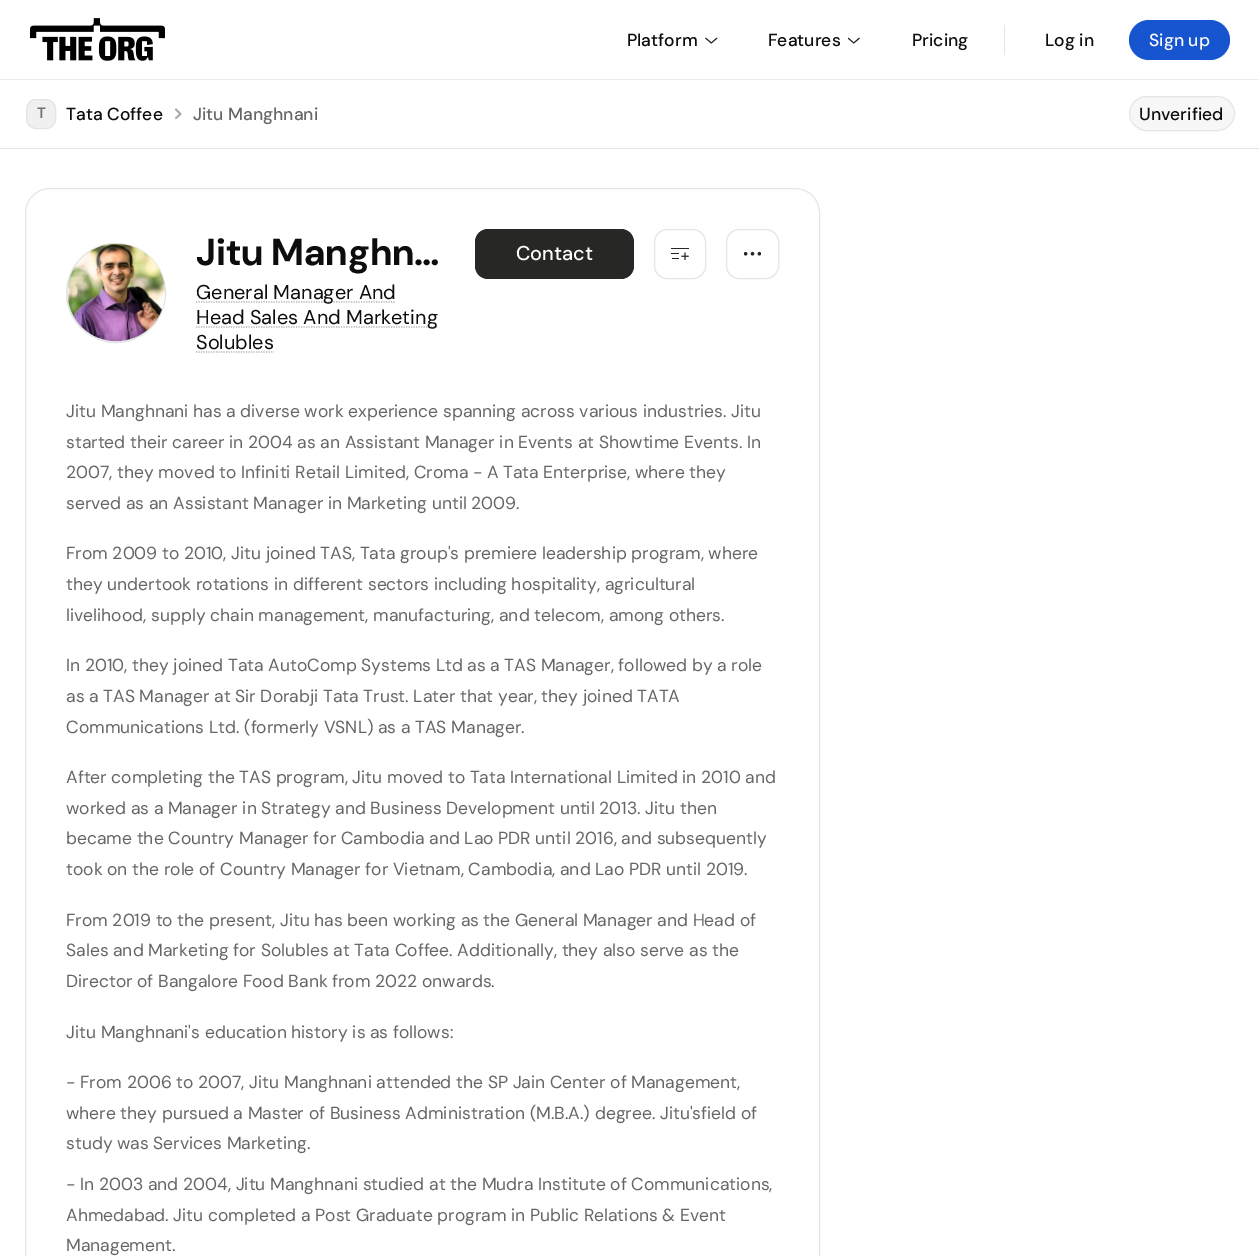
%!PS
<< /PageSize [1259 1256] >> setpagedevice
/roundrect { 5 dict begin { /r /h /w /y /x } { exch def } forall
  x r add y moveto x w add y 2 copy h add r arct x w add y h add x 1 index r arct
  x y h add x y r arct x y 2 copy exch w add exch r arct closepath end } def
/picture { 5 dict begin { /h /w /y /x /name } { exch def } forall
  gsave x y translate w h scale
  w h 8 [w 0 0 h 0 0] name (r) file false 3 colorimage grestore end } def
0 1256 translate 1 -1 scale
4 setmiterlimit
1 setgray
0 0 1259 1256 rectfill
0.922 setgray
0 79 1259 1 rectfill
(img1.rgb) 30 18 135 43 picture
/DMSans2-Medium [17.5 0 0 -17.5 0 0] selectfont
0.051 setgray
627 46 moveto (Platform) show
(img2.rgb) 705 37 13 7 picture
768 46 moveto (Features) show
(img3.rgb) 848 37 12 7 picture
912 46 moveto (Pricing) show
0.902 setgray
1004 25 1 30 rectfill
0.051 setgray
1045 46 moveto (Log in) show
0.09 0.329 0.812 setrgbcolor
1129 20 101 40 20 roundrect fill
0.992 0.992 0.988 setrgbcolor
1149 46 moveto (Sign up) show
0.902 setgray
0 148 1259 1 rectfill
0.941 setgray
26.5 99.5 29 29 9.5 roundrect gsave fill grestore
0.894 0.894 0.906 setrgbcolor
stroke
/DMSans-SemiBold [15 0 0 -15 0 0] selectfont
0.435 0.443 0.475 setrgbcolor
37 118 moveto (T) show
/DMSans2-Medium [17.5 0 0 -17.5 0 0] selectfont
0.051 setgray
66 120 moveto (Tata Coffee) show
0.671 0.671 0.694 setrgbcolor
1.9 setlinewidth
1 setlinecap
1 setlinejoin
newpath 176 109.5 moveto 180.5 114 lineto 176 118 lineto stroke
0.4 setgray
193 120 moveto (Jitu Manghnani) show
0.969 setgray
1129.5 96.5 105 34 17 roundrect gsave fill grestore
0.902 setgray
1 setlinewidth
0 setlinecap
0 setlinejoin
stroke
0.051 setgray
1139 120 moveto (Unverified) show
0.902 setgray
25.5 188.5 794 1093 24.5 roundrect stroke
0.894 0.894 0.906 setrgbcolor
newpath 116 293 49.5 0 360 arc closepath gsave fill grestore
stroke
(img4.rgb) 67 243 98 99 picture
/DMSans-Bold [37.5 0 0 -37.5 0 0] selectfont
0.051 setgray
196 265 moveto (Jitu Manghn…) show
0.702 setgray
1.2 setlinewidth
[1.25 1.25] 0 setdash
newpath 196 302 moveto 396 302 lineto stroke
/DMSans-Regular [20 0 0 -20 0 0] selectfont
0.051 setgray
196 299 moveto (General Manager And) show
0.702 setgray
newpath 196 327 moveto 438 327 lineto stroke
0.051 setgray
196 324 moveto (Head Sales And Marketing) show
196 349 moveto (Solubles) show
0.702 setgray
newpath 196 352 moveto 274 352 lineto stroke
0.153 0.153 0.145 setrgbcolor
475 229 159 50 13 roundrect fill
/DMSans-Medium [20 0 0 -20 0 0] selectfont
0.992 0.992 0.988 setrgbcolor
516 260 moveto (Contact) show
0.902 setgray
1 setlinewidth
[] 0 setdash
654.5 229.5 51 49 12.5 roundrect stroke
(img5.rgb) 671 248 18 12 picture
726.5 229.5 52 49 12.5 roundrect stroke
(img6.rgb) 744 251 17 5 picture
/DMSans2-Regular [17.5 0 0 -17.5 0 0] selectfont
0.4 setgray
66 417 moveto (Jitu Manghnani has a diverse work experience spanning across various industries. Jitu) show
66 448 moveto (started their career in 2004 as an Assistant Manager in Events at Showtime Events. In) show
66 478 moveto (2007, they moved to Infiniti Retail Limited, Croma - A Tata Enterprise, where they) show
66 509 moveto (served as an Assistant Manager in Marketing until 2009.) show
66 559 moveto (From 2009 to 2010, Jitu joined TAS, Tata group's premiere leadership program, where) show
66 590 moveto (they undertook rotations in different sectors including hospitality, agricultural) show
66 621 moveto (livelihood, supply chain management, manufacturing, and telecom, among others.) show
66 671 moveto (In 2010, they joined Tata AutoComp Systems Ltd as a TAS Manager, followed by a role) show
66 702 moveto (as a TAS Manager at Sir Dorabji Tata Trust. Later that year, they joined TATA) show
66 733 moveto (Communications Ltd. \(formerly VSNL\) as a TAS Manager.) show
66 783 moveto (After completing the TAS program, Jitu moved to Tata International Limited in 2010 and) show
66 814 moveto (worked as a Manager in Strategy and Business Development until 2013. Jitu then) show
66 844 moveto (became the Country Manager for Cambodia and Lao PDR until 2016, and subsequently) show
66 875 moveto (took on the role of Country Manager for Vietnam, Cambodia, and Lao PDR until 2019.) show
66 926 moveto (From 2019 to the present, Jitu has been working as the General Manager and Head of) show
66 956 moveto (Sales and Marketing for Solubles at Tata Coffee. Additionally, they also serve as the) show
66 987 moveto (Director of Bangalore Food Bank from 2022 onwards.) show
66 1038 moveto (Jitu Manghnani's education history is as follows:) show
66 1088 moveto (- From 2006 to 2007, Jitu Manghnani attended the SP Jain Center of Management,) show
66 1119 moveto (where they pursued a Master of Business Administration \(M.B.A.\) degree. Jitu'sfield of) show
66 1149 moveto (study was Services Marketing.) show
66 1190 moveto (- In 2003 and 2004, Jitu Manghnani studied at the Mudra Institute of Communications,) show
66 1221 moveto (Ahmedabad. Jitu completed a Post Graduate program in Public Relations & Event) show
66 1251 moveto (Management.) show
showpage
